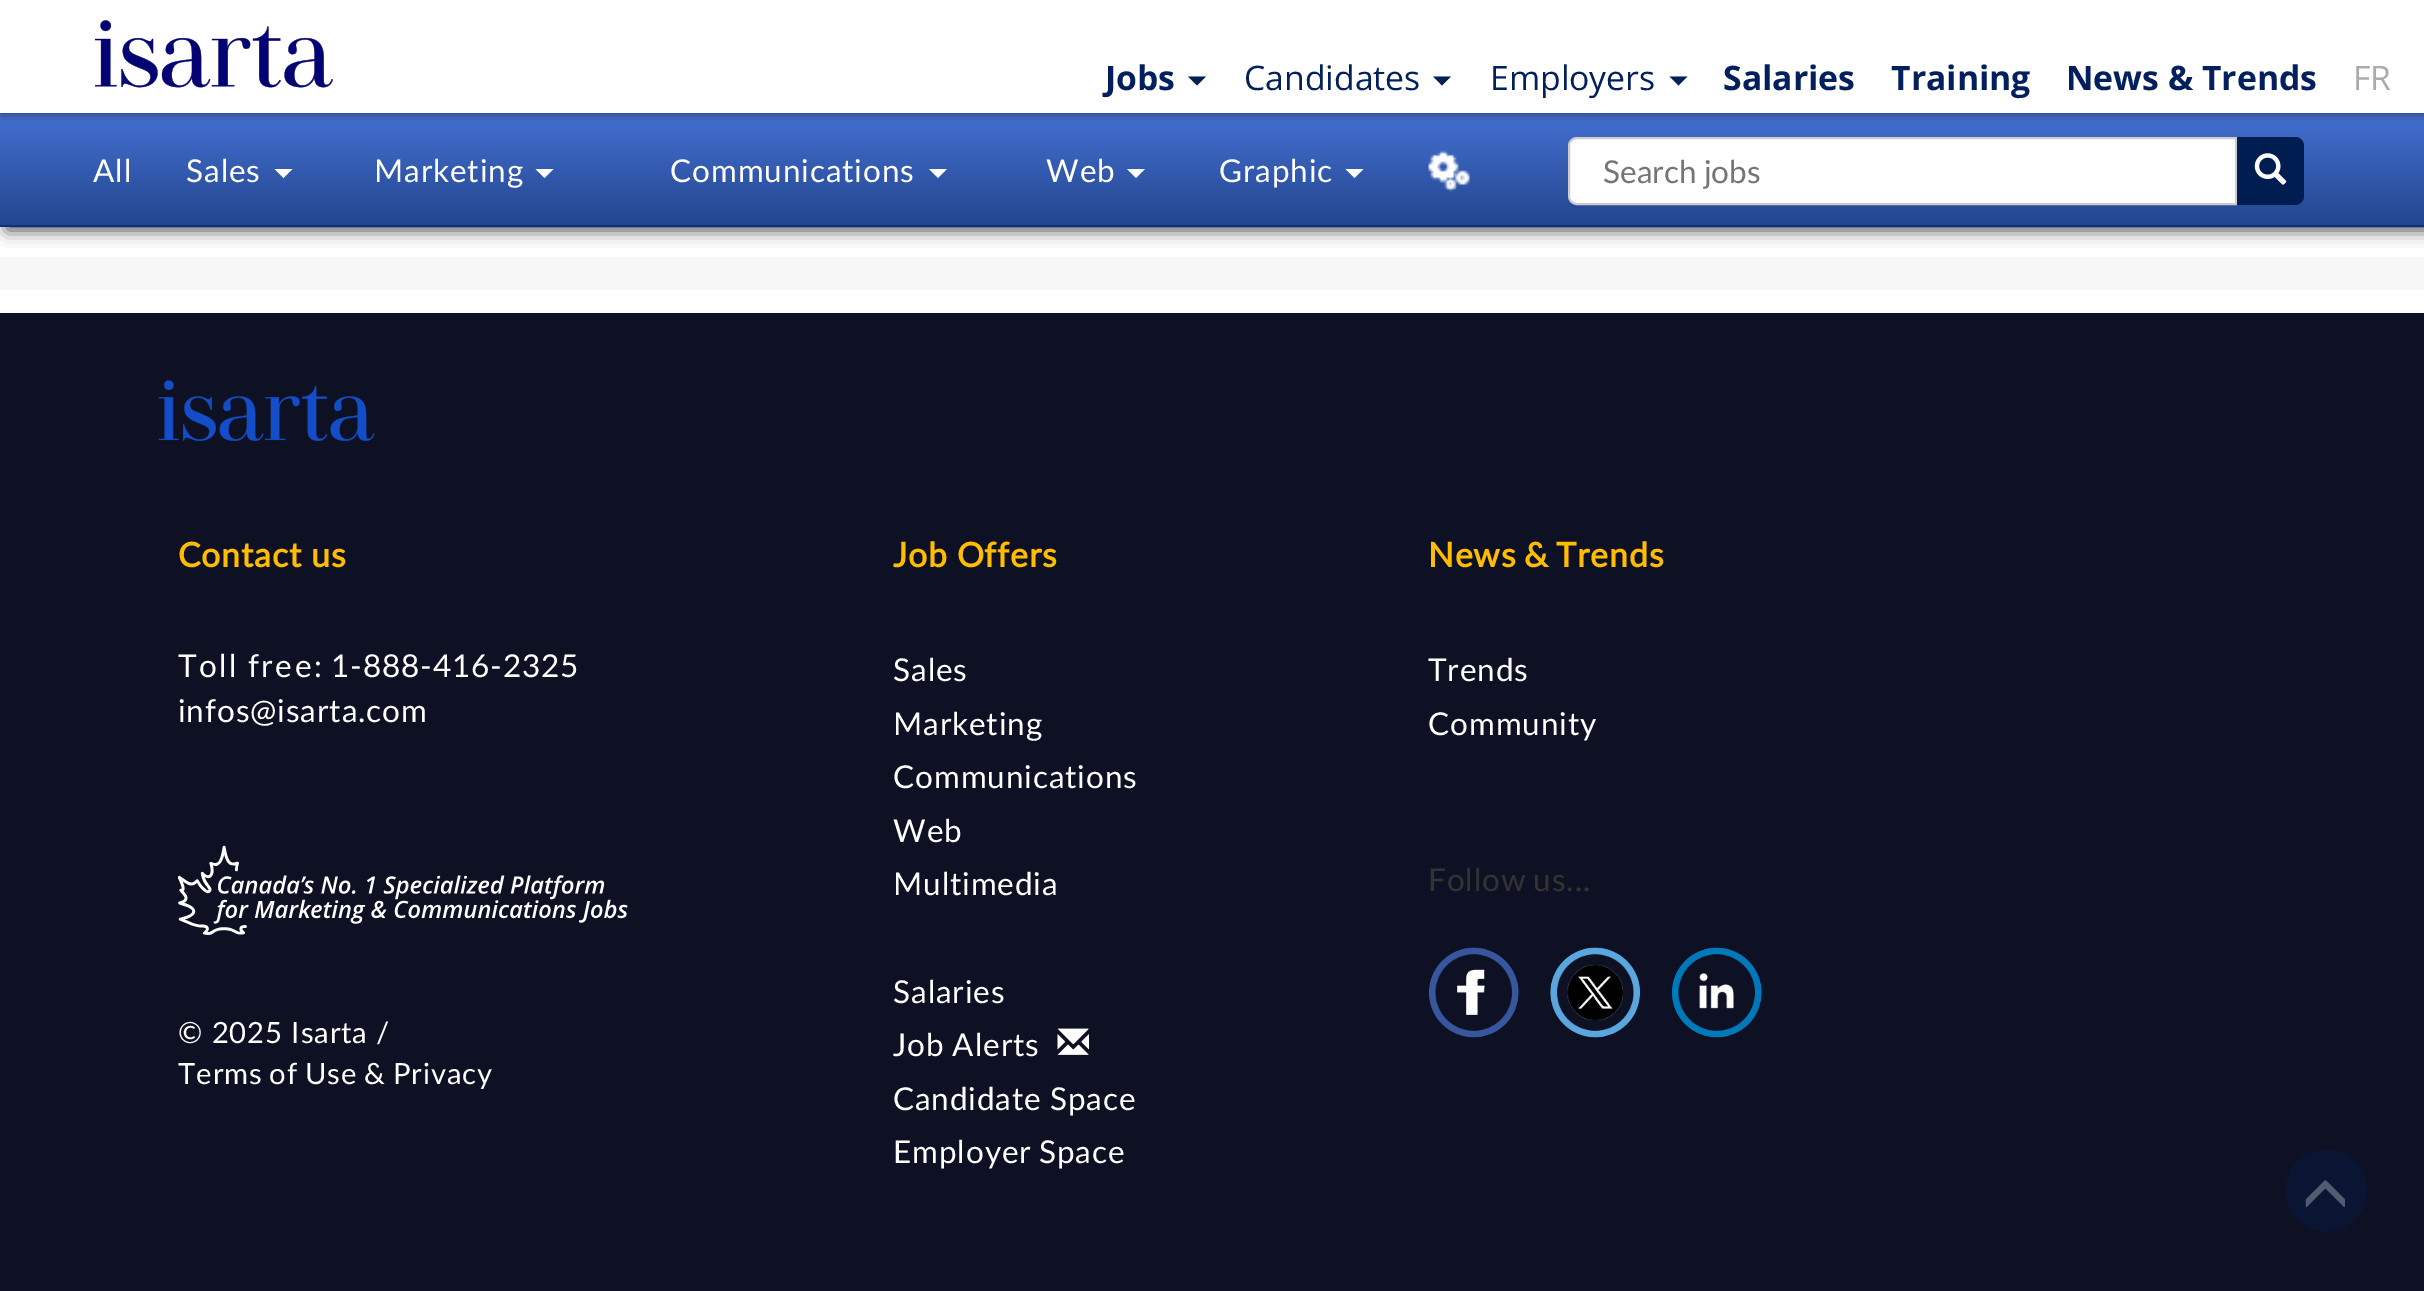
%!PS
<< /PageSize [2424 1291] /PageUsesTransparency true >> setpagedevice
/alpha { dup .setfillconstantalpha .setstrokeconstantalpha } def
/roundrect { 5 dict begin { /r /h /w /y /x } { exch def } forall
  x r add y moveto x w add y 2 copy h add r arct x w add y h add x 1 index r arct
  x y h add x y r arct x y 2 copy exch w add exch r arct closepath end } def
/shadow { 12 dict begin { /a /b /q /h /w /y /x } { exch def } forall gsave /was 0 def
  9 -2 -9 { dup b mul 4 div /e exch def 1 sub .425 mul 2.718 exch exp 1 add a .99 .min exch div /now exch def
    1 1 now sub 1 was sub div sub alpha /was now def
    w h .min e 2 mul add 0 gt { x e sub y e sub w e 2 mul add h e 2 mul add
      q e add b .6 mul add w h .min 2 div e add .min 0 .max roundrect fill } if } for grestore end } def
/picture { 5 dict begin { /h /w /y /x /name } { exch def } forall
  gsave x y translate w h scale
  w h 8 [w 0 0 h 0 0] name (r) file false 3 colorimage grestore end } def
0 .pushpdf14devicefilter
0 1291 translate 1 -1 scale
4 setmiterlimit
1 setgray
0 0 2424 1291 rectfill
0 setgray
7 119 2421 111 0 8 0.75 shadow
gsave newpath 0 113 moveto 2424 113 lineto 2424 225 lineto 0 225 lineto closepath clip newpath
<< /ShadingType 2 /ColorSpace /DeviceRGB /Coords [1213 112 1213 225] /Extend [true true] /Function << /FunctionType 2 /Domain [0 1] /C0 [0.263 0.443 0.827] /C1 [0.141 0.271 0.557] /N 1 >> >> shfill grestore
0 0 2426 113 0 5.5 0.49 shadow
1 setgray
0 0 2424 113 rectfill
(img1.rgb) 95 20 238 68 picture
/OpenSans-Bold [33.75 0 0 -33.75 0 0] selectfont
0.012 0.122 0.369 setrgbcolor
1105 90 moveto (Jobs) show
0.012 0.122 0.325 setrgbcolor
newpath 1188 76.5 moveto 1206 76.5 lineto 1197 85.5 lineto closepath fill
/OpenSans-Regular [33.75 0 0 -33.75 0 0] selectfont
0.012 0.122 0.369 setrgbcolor
1244 90 moveto (Candidates) show
0.012 0.122 0.325 setrgbcolor
newpath 1433 76.5 moveto 1451 76.5 lineto 1442 85.5 lineto closepath fill
0.012 0.122 0.369 setrgbcolor
1490 90 moveto (Employers) show
0.012 0.122 0.325 setrgbcolor
newpath 1669.5 76.5 moveto 1687.5 76.5 lineto 1678.5 85.5 lineto closepath fill
/OpenSans-Bold [33.75 0 0 -33.75 0 0] selectfont
0.012 0.122 0.369 setrgbcolor
1723 90 moveto (Salaries) show
1891 90 moveto (Training) show
2066 90 moveto (News & Trends) show
/OpenSans-Regular [33.75 0 0 -33.75 0 0] selectfont
0.671 setgray
2353 90 moveto (FR) show
0.035 0.192 0.529 setrgbcolor
0 225 2424 2 rectfill
/Lato-Regular [31.5 0 0 -31.5 0 0] selectfont
1 setgray
93 182 moveto 0.9 0 (All) ashow
186 182 moveto 0.9 0 (Sales) ashow
newpath 274.5 169 moveto 292.5 169 lineto 283.5 178 lineto closepath fill
374 182 moveto 0.9 0 (Marketing) ashow
newpath 535.5 169 moveto 553.5 169 lineto 544.5 178 lineto closepath fill
670 182 moveto 0.9 0 (Communications) ashow
newpath 929 169 moveto 947 169 lineto 938 178 lineto closepath fill
1046 182 moveto 0.9 0 (Web) ashow
newpath 1127 169 moveto 1145 169 lineto 1136 178 lineto closepath fill
1219 182 moveto 0.9 0 (Graphic) ashow
newpath 1345.5 169 moveto 1363.5 169 lineto 1354.5 178 lineto closepath fill
(img2.rgb) 1428 150 42 42 picture
newpath 1577 138 moveto 2236 138 lineto 2236 204 lineto 1577 204 lineto 1572.5 204 1569 200.5 1569 196 curveto 1569 146 lineto 1569 141.5 1572.5 138 1577 138 curveto closepath gsave fill grestore
0.8 setgray
2 setlinewidth
stroke
0.459 setgray
1603 183 moveto -1 0 32 (Search jobs) widthshow
0 0.114 0.318 setrgbcolor
newpath 2237 137 moveto 2295 137 lineto 2300 137 2304 141 2304 146 curveto 2304 196 lineto 2304 201 2300 205 2295 205 curveto 2237 205 lineto closepath fill
(img3.rgb) 2254 153 33 32 picture
0.965 setgray
0 257 2424 33 rectfill
0.055 0.067 0.137 setrgbcolor
0 313 2424 978 rectfill
(img4.rgb) 158 380 217 61 picture
/Lato-Bold [33.75 0 0 -33.75 0 0] selectfont
1 0.737 0 setrgbcolor
178 567 moveto 0.9 0 (Contact us) ashow
/Lato-Regular [31.5 0 0 -31.5 0 0] selectfont
1 setgray
178 677 moveto -2 0 32 2.5 0 (Toll free:) awidthshow
331 677 moveto 0.9 0 (1-888-416-2325) ashow
178 722 moveto 0.9 0 (infos@isarta.com) ashow
(img5.rgb) 178 845 450 90 picture
/Lato-Regular [29.25 0 0 -29.25 0 0] selectfont
178 1043 moveto 0.9 0 (© 2025 Isarta /) ashow
178 1084 moveto -1.5 0 32 0.9 0 (Terms of Use & Privacy) awidthshow
/Lato-Bold [33.75 0 0 -33.75 0 0] selectfont
1 0.737 0 setrgbcolor
893 567 moveto -1 0 32 0.9 0 (Job Offers) awidthshow
/Lato-Regular [31.5 0 0 -31.5 0 0] selectfont
1 setgray
893 681 moveto 0.9 0 (Sales) ashow
893 735 moveto 0.9 0 (Marketing) ashow
893 788 moveto 0.9 0 (Communications) ashow
893 842 moveto 0.9 0 (Web) ashow
893 895 moveto 0.9 0 (Multimedia) ashow
893 1003 moveto 0.9 0 (Salaries) ashow
893 1056 moveto -1 0 32 0.9 0 (Job Alerts) awidthshow
(img6.rgb) 1057 1028 32 27 picture
893 1110 moveto -1 0 32 0.9 0 (Candidate Space) awidthshow
893 1163 moveto -2 0 32 0.9 0 (Employer Space) awidthshow
/Lato-Bold [33.75 0 0 -33.75 0 0] selectfont
1 0.737 0 setrgbcolor
1428 567 moveto -2 0 32 0.9 0 (News & Trends) awidthshow
/Lato-Regular [31.5 0 0 -31.5 0 0] selectfont
1 setgray
1428 681 moveto 0.9 0 (Trends) ashow
1428 735 moveto 0.9 0 (Community) ashow
0.2 setgray
1428 891 moveto -2 0 32 0.9 0 (Follow us...) awidthshow
(img7.rgb) 1428 947 91 91 picture
(img8.rgb) 1550 947 91 91 picture
(img9.rgb) 1671 947 91 91 picture
0.039 0.082 0.204 setrgbcolor
newpath 2326.5 1190.5 40.5 0 360 arc closepath fill
(img10.rgb) 2305 1180 40 27 picture
.poppdf14devicefilter showpage
